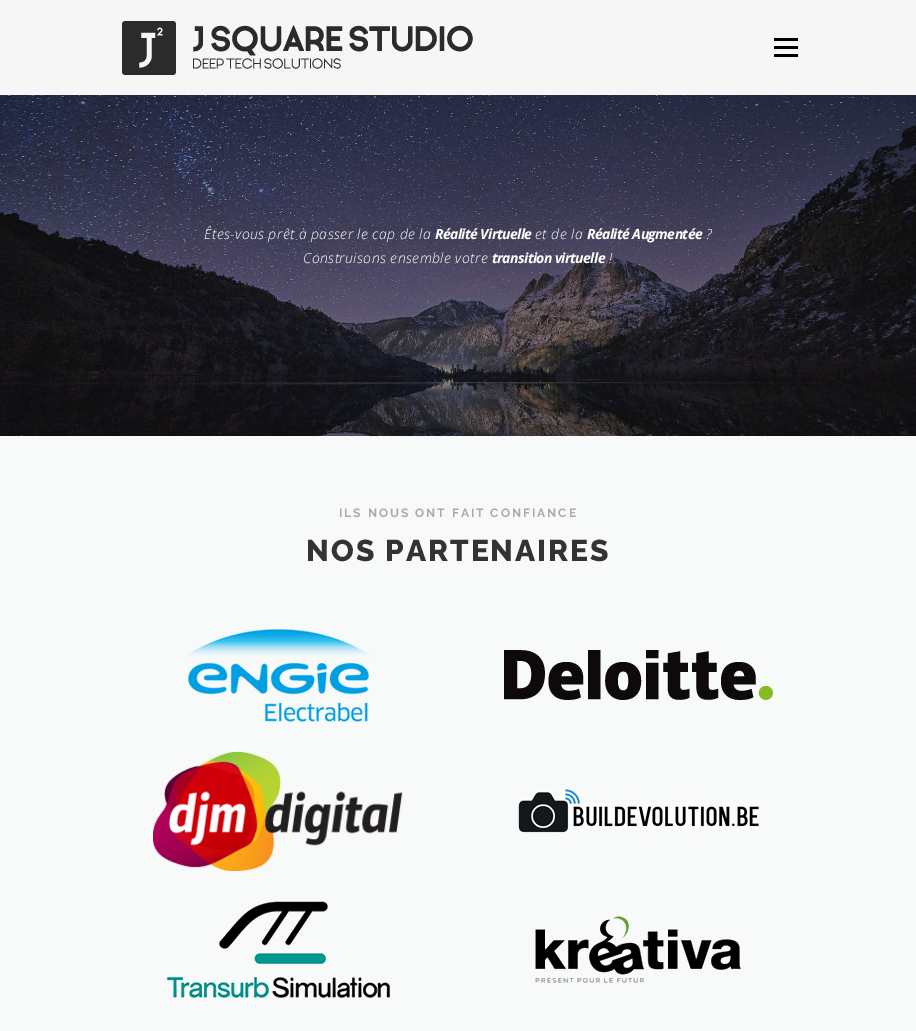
%!PS
<< /PageSize [916 1031] >> setpagedevice
/picture { 5 dict begin { /h /w /y /x /name } { exch def } forall
  gsave x y translate w h scale
  w h 8 [w 0 0 h 0 0] name (r) file false 3 colorimage grestore end } def
0 1031 translate 1 -1 scale
4 setmiterlimit
1 setgray
0 0 916 1031 rectfill
0.965 setgray
0 0 916 95 rectfill
(img1.rgb) 122 21 351 54 picture
0 setgray
774 46 24 3 rectfill
774 38 24 3 rectfill
774 54 24 3 rectfill
(img2.rgb) 0 95 916 341 picture
/OpenSans-LightItalic [14 0 0 -14 0 0] selectfont
1 setgray
204 239 moveto 0.4 0 (Êtes-vous prêt à passer le cap de la) ashow
/OpenSans-BoldItalic [14 0 0 -14 0 0] selectfont
435 239 moveto -0.6 0 (Réalité Virtuelle) ashow
/OpenSans-LightItalic [14 0 0 -14 0 0] selectfont
535 239 moveto 0.4 0 (et de la) ashow
/OpenSans-BoldItalic [14 0 0 -14 0 0] selectfont
587 239 moveto -0.6 0 (Réalité Augmentée) ashow
/OpenSans-LightItalic [14 0 0 -14 0 0] selectfont
706 239 moveto 0.4 0 (?) ashow
303 263 moveto 0.4 0 (Construisons ensemble votre) ashow
/OpenSans-BoldItalic [14 0 0 -14 0 0] selectfont
492 263 moveto -0.6 0 (transition virtuelle) ashow
/OpenSans-LightItalic [14 0 0 -14 0 0] selectfont
609 263 moveto 0.4 0 (!) ashow
0.973 0.976 0.976 setrgbcolor
0 436 916 595 rectfill
/Raleway-Bold [12 0 0 -12 0 0] selectfont
0.667 setgray
339 517 moveto 2 0 (ILS NOUS ONT FAIT CONFIANCE) ashow
/Raleway-ExtraBold [30 0 0 -30 0 0] selectfont
0.2 setgray
306 561 moveto 2 0 (NOS PARTENAIRES) ashow
(img3.rgb) 187 629 183 93 picture
(img4.rgb) 504 650 269 50 picture
(img5.rgb) 153 752 250 119 picture
(img6.rgb) 518 789 241 44 picture
(img7.rgb) 167 901 223 97 picture
(img8.rgb) 535 916 206 67 picture
showpage
